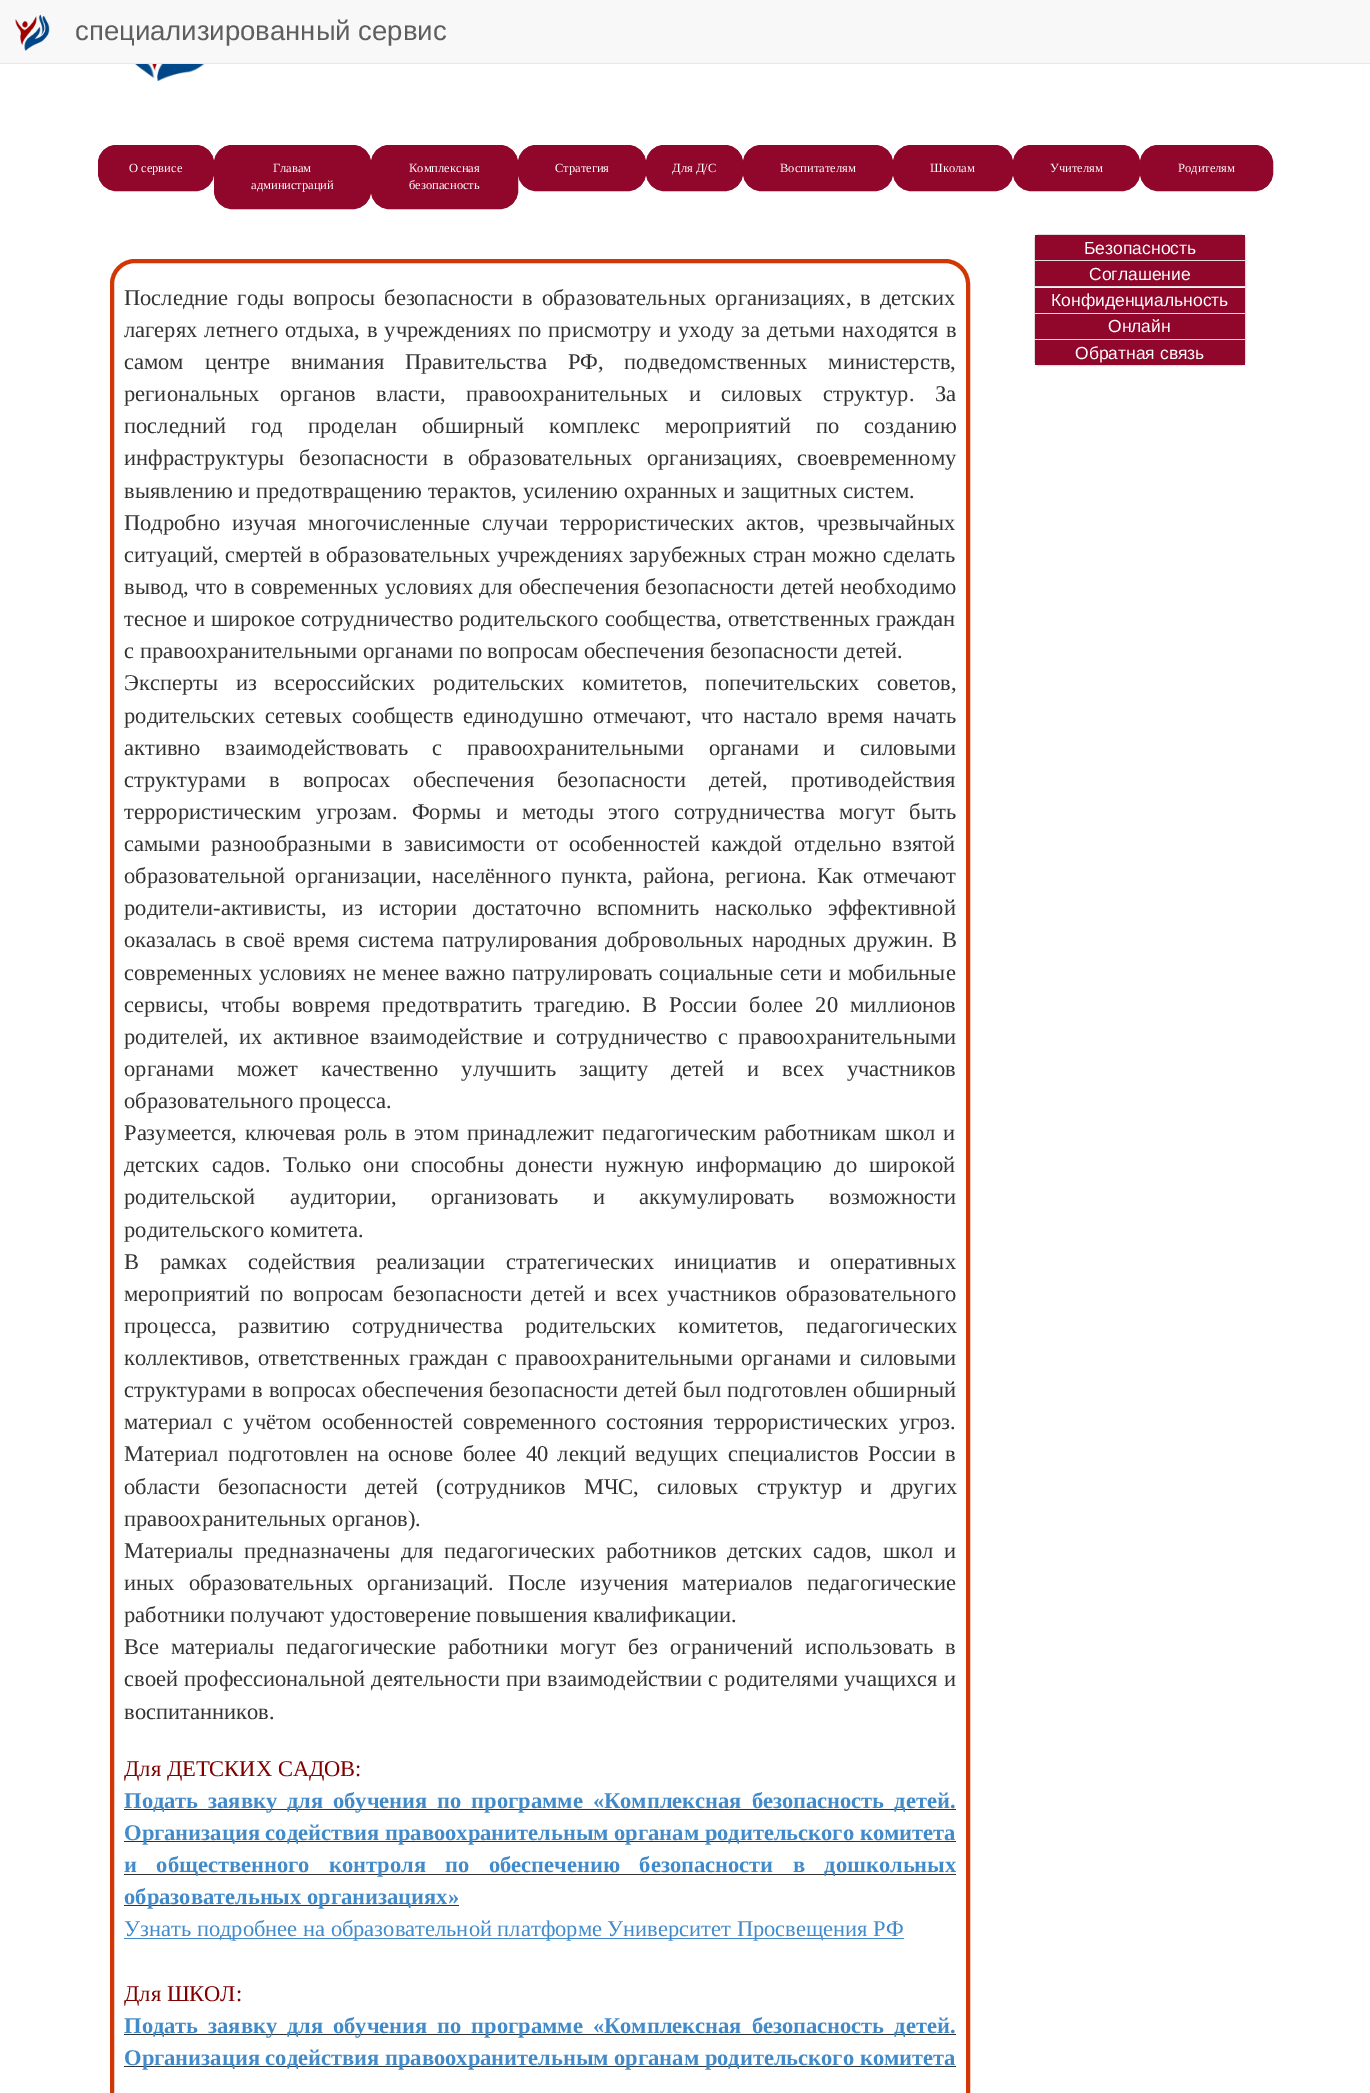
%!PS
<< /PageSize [1370 2093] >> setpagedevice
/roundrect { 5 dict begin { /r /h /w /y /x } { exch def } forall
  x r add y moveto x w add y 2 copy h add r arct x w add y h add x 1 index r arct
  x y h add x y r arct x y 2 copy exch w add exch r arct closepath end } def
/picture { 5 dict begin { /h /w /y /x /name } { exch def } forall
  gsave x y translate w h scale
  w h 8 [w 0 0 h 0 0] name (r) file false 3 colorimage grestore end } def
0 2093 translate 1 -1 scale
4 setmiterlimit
1 setgray
0 0 1370 2093 rectfill
0.973 setgray
0 0 1370 63 rectfill
0.906 setgray
0 63 1370 1 rectfill
(img1.rgb) 15 14 35 37 picture
/LiberationSans-Regular [27.5 0 0 -27.5 0 0] selectfont
0.369 setgray
75 40 moveto (специализированный сервис) show
(img2.rgb) 135 64 70 18 picture
0.569 0.024 0.169 setrgbcolor
98.5 145.5 115 45 17.5 roundrect gsave fill grestore
stroke
/LiberationSerif-Regular [12.5 0 0 -12.5 0 0] selectfont
1 setgray
129 172 moveto (О сервисе) show
0.569 0.024 0.169 setrgbcolor
214.5 145.5 156 63 17.5 roundrect gsave fill grestore
stroke
1 setgray
273 172 moveto (Главам) show
251 189 moveto (администраций) show
0.569 0.024 0.169 setrgbcolor
371.5 145.5 146 63 17.5 roundrect gsave fill grestore
stroke
1 setgray
409 172 moveto (Комплексная) show
409 189 moveto (безопасность) show
0.569 0.024 0.169 setrgbcolor
518.5 145.5 127 45 17.5 roundrect gsave fill grestore
stroke
1 setgray
555 172 moveto (Стратегия) show
0.569 0.024 0.169 setrgbcolor
646.5 145.5 96 45 17.5 roundrect gsave fill grestore
stroke
1 setgray
672 172 moveto (Для Д/С) show
0.569 0.024 0.169 setrgbcolor
743.5 145.5 149 45 17.5 roundrect gsave fill grestore
stroke
1 setgray
780 172 moveto (Воспитателям) show
0.569 0.024 0.169 setrgbcolor
893.5 145.5 119 45 17.5 roundrect gsave fill grestore
stroke
1 setgray
930 172 moveto (Школам) show
0.569 0.024 0.169 setrgbcolor
1013.5 145.5 126 45 17.5 roundrect gsave fill grestore
stroke
1 setgray
1050 172 moveto (Учитeлям) show
0.569 0.024 0.169 setrgbcolor
1140.5 145.5 132 45 17.5 roundrect gsave fill grestore
stroke
1 setgray
1178 172 moveto (Рoдителям) show
0.82 0.216 0.016 setrgbcolor
4 setlinewidth
112 261 856 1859 23 roundrect stroke
/LiberationSerif-Regular [22.5 0 0 -22.5 0 0] selectfont
0.2 setgray
124 305 moveto 3.5 0 32 (Последние годы вопросы безопасности в образовательных организациях, в детских) widthshow
124 337 moveto 1.5 0 32 (лагерях летнего отдыха, в учреждениях по присмотру и уходу за детьми находятся в) widthshow
124 369 moveto 15.25 0 32 (самом центре внимания Правительства РФ, подведомственных министерств,) widthshow
124 401 moveto 14.75 0 32 (региональных органов власти, правоохранительных и силовых структур. За) widthshow
124 433 moveto 19.25 0 32 (последний год проделан обширный комплекс мероприятий по созданию) widthshow
124 465 moveto 9 0 32 (инфраструктуры безопасности в образовательных организациях, своевременному) widthshow
124 498 moveto (выявлению и предотвращению терактов, усилению охранных и защитных систем.) show
124 530 moveto 6.5 0 32 (Подробно изучая многочисленные случаи террористических актов, чрезвычайных) widthshow
124 562 moveto 0.75 0 32 (ситуаций, смертей в образовательных учреждениях зарубежных стран можно сделать) widthshow
124 594 moveto 0.75 0 32 (вывод, что в современных условиях для обеспечения безопасности детей необходимо) widthshow
124 626 moveto 0.25 0 32 (тесное и широкое сотрудничество родительского сообщества, ответственных граждан) widthshow
124 658 moveto (с правоохранительными органами по вопросам обеспечения безопасности детей.) show
124 690 moveto 12 0 32 (Эксперты из всероссийских родительских комитетов, попечительских советов,) widthshow
124 723 moveto 4 0 32 (родительских сетевых сообществ единодушно отмечают, что настало время начать) widthshow
124 755 moveto 18.75 0 32 (активно взаимодействовать с правоохранительными органами и силовыми) widthshow
124 787 moveto 17.5 0 32 (структурами в вопросах обеспечения безопасности детей, противодействия) widthshow
124 819 moveto 8.75 0 32 (террористическим угрозам. Формы и методы этого сотрудничества могут быть) widthshow
124 851 moveto 5.75 0 32 (самыми разнообразными в зависимости от особенностей каждой отдельно взятой) widthshow
124 883 moveto 4.5 0 32 (образовательной организации, населённого пункта, района, региона. Как отмечают) widthshow
124 915 moveto 10 0 32 (родители-активисты, из истории достаточно вспомнить насколько эффективной) widthshow
124 947 moveto 2.5 0 32 (оказалась в своё время система патрулирования добровольных народных дружин. В) widthshow
124 980 moveto 1.25 0 32 (современных условиях не менее важно патрулировать социальные сети и мобильные) widthshow
124 1012 moveto 6.5 0 32 (сервисы, чтобы вовремя предотвратить трагедию. В России более 20 миллионов) widthshow
124 1044 moveto 4.75 0 32 (родителей, их активное взаимодействие и сотрудничество с правоохранительными) widthshow
124 1076 moveto 17.25 0 32 (органами может качественно улучшить защиту детей и всех участников) widthshow
124 1108 moveto (образовательного процесса.) show
124 1140 moveto 2.25 0 32 (Разумеется, ключевая роль в этом принадлежит педагогическим работникам школ и) widthshow
124 1172 moveto 6.5 0 32 (детских садов. Только они способны донести нужную информацию до широкой) widthshow
124 1204 moveto 29 0 32 (родительской аудитории, организовать и аккумулировать возможности) widthshow
124 1237 moveto (родительского комитета.) show
124 1269 moveto 15 0 32 (В рамках содействия реализации стратегических инициатив и оперативных) widthshow
124 1301 moveto 4 0 32 (мероприятий по вопросам безопасности детей и всех участников образовательного) widthshow
124 1333 moveto 16.5 0 32 (процесса, развитию сотрудничества родительских комитетов, педагогических) widthshow
124 1365 moveto 2.75 0 32 (коллективов, ответственных граждан с правоохранительными органами и силовыми) widthshow
124 1397 moveto 0.5 0 32 (структурами в вопросах обеспечения безопасности детей был подготовлен обширный) widthshow
124 1429 moveto 4.75 0 32 (материал с учётом особенностей современного состояния террористических угроз.) widthshow
124 1461 moveto 3.6 0 32 (Материал подготовлен на основе более 40 лекций ведущих специалистов России в) widthshow
124 1494 moveto 12.5 0 32 (области безопасности детей \(сотрудников МЧС, силовых структур и других) widthshow
124 1526 moveto (правоохранительных органов\).) show
124 1558 moveto 5 0 32 (Материалы предназначены для педагогических работников детских садов, школ и) widthshow
124 1590 moveto 8.5 0 32 (иных образовательных организаций. После изучения материалов педагогические) widthshow
124 1622 moveto (работники получают удостоверение повышения квалификации.) show
124 1654 moveto 6.25 0 32 (Все материалы педагогические работники могут без ограничений использовать в) widthshow
124 1686 moveto 0.5 0 32 (своей профессиональной деятельности при взаимодействии с родителями учащихся и) widthshow
124 1719 moveto (воспитанников.) show
0.502 0 0 setrgbcolor
124 1776 moveto (Для ДЕТСКИХ САДОВ:) show
0.2 setgray
124 1809 832 1 rectfill
/LiberationSerif-Bold [22.5 0 0 -22.5 0 0] selectfont
0.259 0.545 0.792 setrgbcolor
124 1808 moveto 4.25 0 32 (Подать заявку для обучения по программе «Комплексная безопасность детей.) widthshow
0.2 setgray
124 1841 832 1 rectfill
0.259 0.545 0.792 setrgbcolor
124 1840 moveto (Организация содействия правоохранительным органам родительского комитета) show
0.2 setgray
124 1874 832 1 rectfill
0.259 0.545 0.792 setrgbcolor
124 1872 moveto 13.75 0 32 (и общественного контроля по обеспечению безопасности в дошкольных) widthshow
0.2 setgray
124 1905 335 1 rectfill
0.259 0.545 0.792 setrgbcolor
124 1904 moveto (образовательных организациях») show
124 1938 780 1 rectfill
/LiberationSerif-Regular [22.5 0 0 -22.5 0 0] selectfont
124 1936 moveto (Узнать подробнее на образовательной платформе Университет Просвещения РФ) show
0.502 0 0 setrgbcolor
124 2001 moveto (Для ШКОЛ:) show
0.2 setgray
124 2034 832 1 rectfill
/LiberationSerif-Bold [22.5 0 0 -22.5 0 0] selectfont
0.259 0.545 0.792 setrgbcolor
124 2033 moveto 4.25 0 32 (Подать заявку для обучения по программе «Комплексная безопасность детей.) widthshow
0.2 setgray
124 2066 832 1 rectfill
0.259 0.545 0.792 setrgbcolor
124 2065 moveto (Организация содействия правоохранительным органам родительского комитета) show
0.867 setgray
1 setlinewidth
newpath 1039 234.5 moveto 1241 234.5 lineto 1243.5 234.5 1245.5 236.5 1245.5 239 curveto 1245.5 260.5 lineto 1034.5 260.5 lineto 1034.5 239 lineto 1034.5 236.5 1036.5 234.5 1039 234.5 curveto closepath stroke
0.569 0.024 0.169 setrgbcolor
1035 235 210 25 rectfill
/LiberationSans-Regular [17.5 0 0 -17.5 0 0] selectfont
1 setgray
1084 254 moveto (Безопасность) show
0.867 setgray
1034.5 260.5 211 27 rectstroke
0.569 0.024 0.169 setrgbcolor
1035 261 210 25 rectfill
1 setgray
1089 280 moveto (Соглашение) show
1035 287 210 1 rectfill
0.867 setgray
1034.5 286.5 211 27 rectstroke
0.569 0.024 0.169 setrgbcolor
1035 288 210 25 rectfill
1 setgray
1051 306 moveto (Конфиденциальность) show
0.867 setgray
1034.5 313.5 211 26 rectstroke
0.569 0.024 0.169 setrgbcolor
1035 314 210 25 rectfill
1 setgray
1108 332 moveto (Онлайн) show
0.867 setgray
newpath 1034.5 339.5 moveto 1245.5 339.5 lineto 1245.5 361 lineto 1245.5 363.5 1243.5 365.5 1241 365.5 curveto 1039 365.5 lineto 1036.5 365.5 1034.5 363.5 1034.5 361 curveto closepath stroke
0.569 0.024 0.169 setrgbcolor
1035 340 210 25 rectfill
1 setgray
1075 359 moveto (Обратная связь) show
showpage
